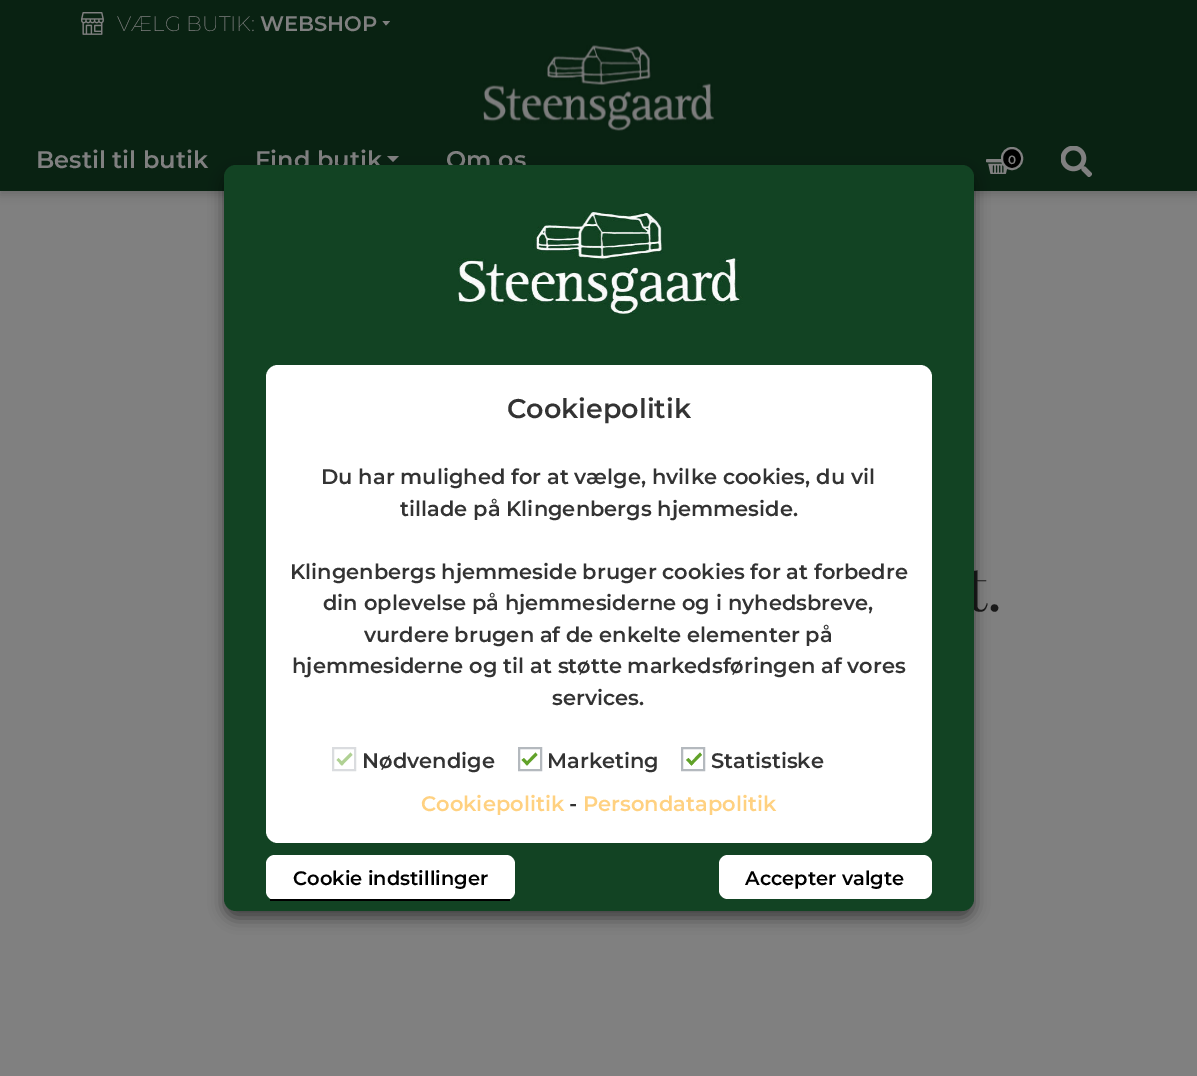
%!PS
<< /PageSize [1197 1076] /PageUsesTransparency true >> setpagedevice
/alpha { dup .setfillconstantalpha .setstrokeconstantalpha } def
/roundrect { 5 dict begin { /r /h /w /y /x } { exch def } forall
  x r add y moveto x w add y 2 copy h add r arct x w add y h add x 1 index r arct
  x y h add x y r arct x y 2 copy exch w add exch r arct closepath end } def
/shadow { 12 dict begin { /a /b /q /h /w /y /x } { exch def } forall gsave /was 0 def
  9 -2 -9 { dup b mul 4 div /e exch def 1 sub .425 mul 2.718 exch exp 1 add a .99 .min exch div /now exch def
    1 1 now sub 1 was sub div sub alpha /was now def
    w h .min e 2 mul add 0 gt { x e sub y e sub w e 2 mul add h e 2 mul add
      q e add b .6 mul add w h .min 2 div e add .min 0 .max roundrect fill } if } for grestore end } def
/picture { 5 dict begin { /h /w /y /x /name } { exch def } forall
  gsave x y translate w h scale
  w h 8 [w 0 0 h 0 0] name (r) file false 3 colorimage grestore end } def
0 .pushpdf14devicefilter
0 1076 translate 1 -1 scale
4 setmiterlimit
0.502 setgray
0 0 1197 1076 rectfill
0 setgray
0 5 1197 190 0 4.5 0.16 shadow
0.035 0.133 0.071 setrgbcolor
0 0 1197 191 rectfill
(img1.rgb) 81 12 23 23 picture
/Montserrat-ExtraLight [21 0 0 -21 0 0] selectfont
0.502 setgray
117 31 moveto (VÆLG BUTIK:) show
/Montserrat-SemiBold [21 0 0 -21 0 0] selectfont
260 31 moveto (WEBSHOP) show
newpath 386 25.5 moveto 382.5 21 lineto 390 21 lineto 387 24.5 lineto closepath fill
(img2.rgb) 483 45 232 86 picture
/Montserrat-SemiBold [24 0 0 -24 0 0] selectfont
36 168 moveto (Bestil til butik) show
255 168 moveto (Find butik) show
newpath 387 156 moveto 399 156 lineto 393 162 lineto closepath fill
446 168 moveto (Om os) show
(img3.rgb) 986 159 22 15 picture
0 setgray
1002 148 20 21 10 roundrect gsave fill grestore
0.502 setgray
2 setlinewidth
stroke
/Montserrat-SemiBold [12 0 0 -12 0 0] selectfont
1008 164 moveto (0) show
(img4.rgb) 1061 146 31 31 picture
/PlayfairDisplay-Regular [60 0 0 -60 0 0] selectfont
0.102 setgray
966 611 moveto (t.) show
0 setgray
224 173 750 745 12 7.5 0.5 shadow
0.071 0.263 0.137 setrgbcolor
224 165 750 746 12 roundrect fill
(img5.rgb) 458 212 285 102 picture
1 setgray
266 365 666 478 12 roundrect fill
/Montserrat-SemiBold [27 0 0 -27 0 0] selectfont
0.2 setgray
507 418 moveto (Cookiepolitik) show
/Montserrat-SemiBold [21 0 0 -21 0 0] selectfont
321 484 moveto (Du har mulighed for at vælge, hvilke cookies, du vil) show
400 516 moveto (tillade på Klingenbergs hjemmeside.) show
290 579 moveto (Klingenbergs hjemmeside bruger cookies for at forbedre) show
323 610 moveto (din oplevelse på hjemmesiderne og i nyhedsbreve,) show
364 642 moveto (vurdere brugen af de enkelte elementer på) show
292 673 moveto (hjemmesiderne og til at støtte markedsføringen af vores) show
552 705 moveto (services.) show
0.855 0.863 0.875 setrgbcolor
333 748 22 22 rectstroke
0.69 0.82 0.58 setrgbcolor
newpath 350.5 752.5 moveto 352.5 755 lineto 342 765.5 lineto 339.5 763.5 lineto closepath fill
newpath 338.5 758 moveto 344 763.5 lineto 342 765.5 lineto 336.5 760 lineto closepath fill
0.2 setgray
362 768 moveto (Nødvendige) show
0.706 0.725 0.745 setrgbcolor
519 748 22 22 rectstroke
0.38 0.635 0.161 setrgbcolor
newpath 535.5 752.5 moveto 537.5 755 lineto 527 765.5 lineto 525 763.5 lineto closepath fill
newpath 524 758 moveto 529 763.5 lineto 527 765.5 lineto 521.5 760 lineto closepath fill
0.2 setgray
547 768 moveto (Marketing) show
0.706 0.725 0.745 setrgbcolor
682 748 22 22 rectstroke
0.38 0.635 0.161 setrgbcolor
newpath 700 752.5 moveto 702 755 lineto 691.5 765.5 lineto 689.5 763.5 lineto closepath fill
newpath 688.5 758 moveto 693.5 763.5 lineto 691.5 765.5 lineto 686 760 lineto closepath fill
0.2 setgray
711 768 moveto (Statistiske) show
1 0.82 0.506 setrgbcolor
421 811 moveto (Cookiepolitik) show
0.2 setgray
569 811 moveto (-) show
1 0.82 0.506 setrgbcolor
583 811 moveto (Persondatapolitik) show
1 setgray
266 855 249 45 9 roundrect fill
0 setgray
270 899 240 2 rectfill
/Montserrat-SemiBold [19.5 0 0 -19.5 0 0] selectfont
293 885 moveto (Cookie indstillinger) show
1 setgray
719 855 213 44 9 roundrect fill
0 setgray
745 885 moveto (Accepter valgte) show
.poppdf14devicefilter showpage
